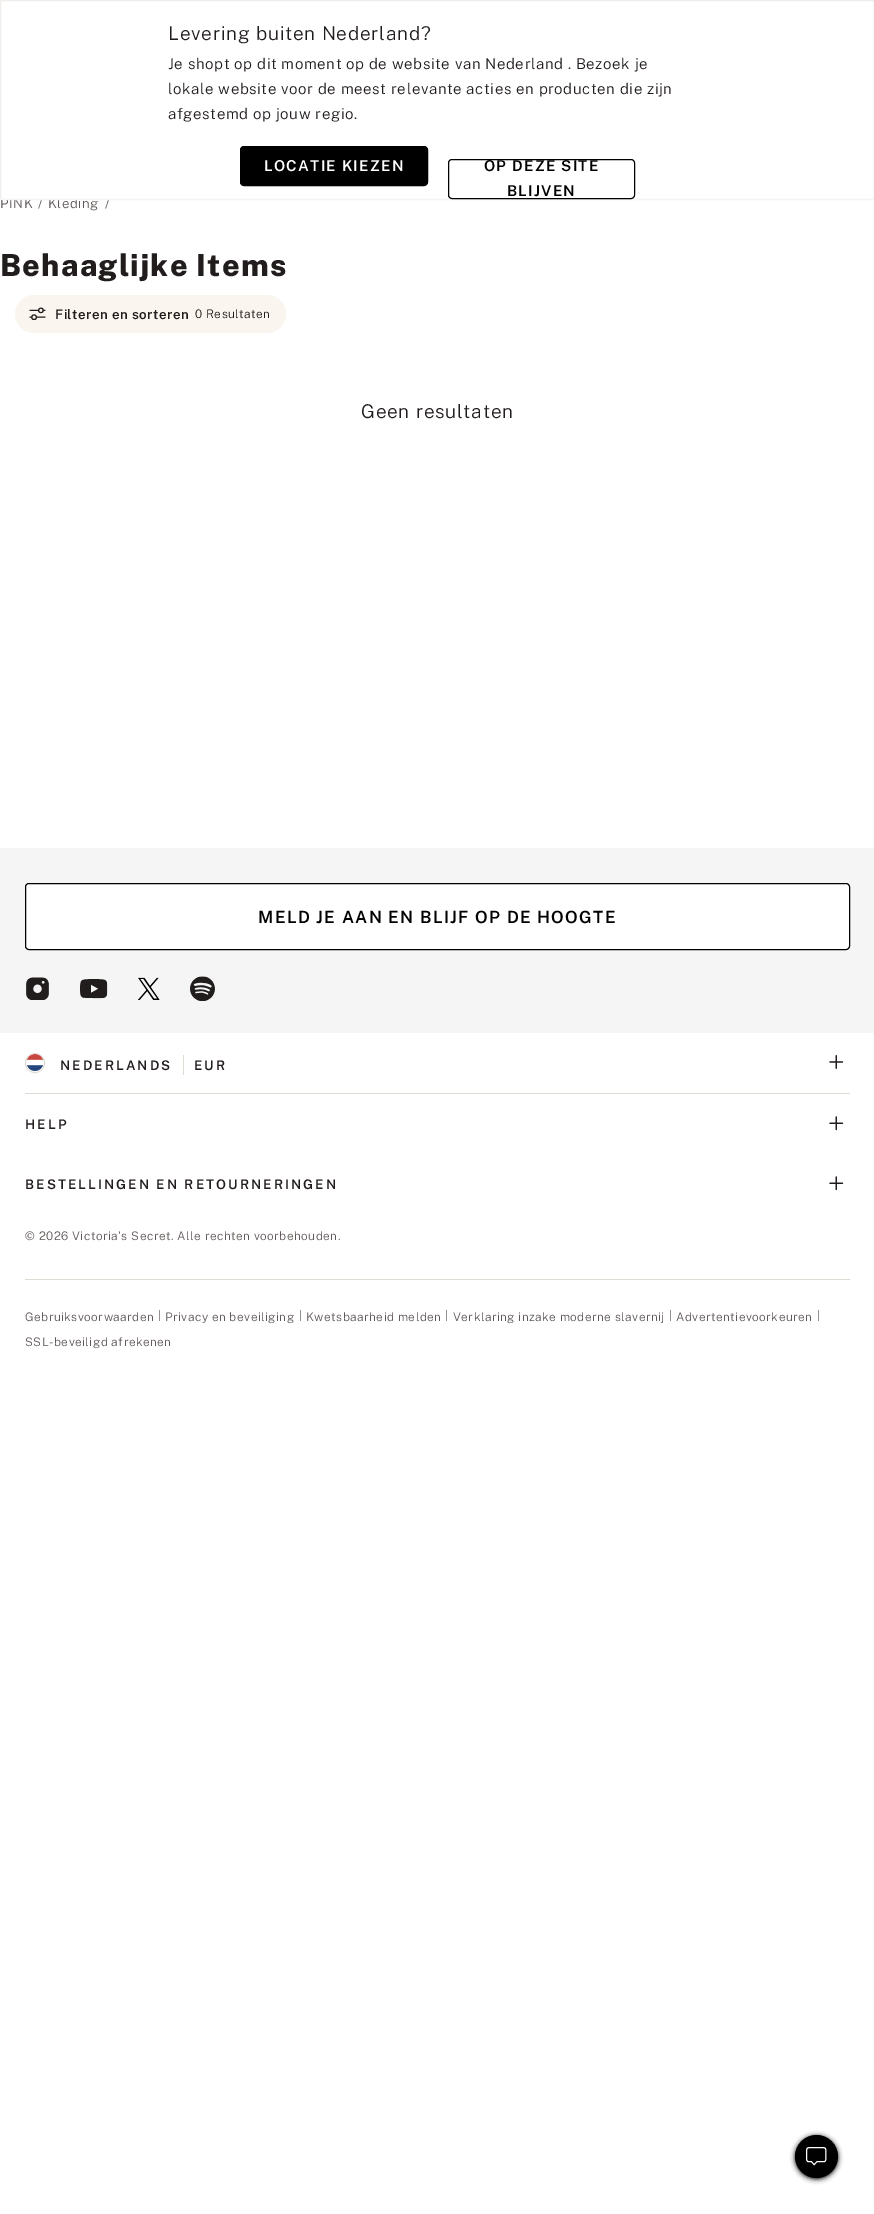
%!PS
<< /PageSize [874 2214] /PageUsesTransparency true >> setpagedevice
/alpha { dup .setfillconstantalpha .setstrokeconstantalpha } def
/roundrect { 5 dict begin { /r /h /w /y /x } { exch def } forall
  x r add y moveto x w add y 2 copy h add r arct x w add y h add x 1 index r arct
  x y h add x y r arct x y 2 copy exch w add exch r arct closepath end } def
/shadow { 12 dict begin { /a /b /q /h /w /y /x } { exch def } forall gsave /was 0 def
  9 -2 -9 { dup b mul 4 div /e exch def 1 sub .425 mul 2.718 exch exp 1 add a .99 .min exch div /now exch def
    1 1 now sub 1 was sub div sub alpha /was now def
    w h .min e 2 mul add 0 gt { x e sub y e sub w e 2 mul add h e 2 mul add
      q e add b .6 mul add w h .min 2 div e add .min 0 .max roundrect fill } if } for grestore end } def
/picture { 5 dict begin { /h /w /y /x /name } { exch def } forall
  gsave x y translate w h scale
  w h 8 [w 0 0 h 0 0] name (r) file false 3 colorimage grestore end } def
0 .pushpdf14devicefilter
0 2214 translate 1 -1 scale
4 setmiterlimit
1 setgray
0 0 874 2214 rectfill
0.976 0.973 0.976 setrgbcolor
0 0 874 2 rectfill
/PublicSans-Light [13.3 0 0 -13.3 0 0] selectfont
0.376 0.345 0.345 setrgbcolor
0 208 moveto 0.5 0 (PINK) ashow
38 208 moveto 0.5 0 (/) ashow
48 208 moveto 0.5 0 (Kleding) ashow
105 208 moveto 0.5 0 (/) ashow
1 setgray
0 0 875 200 2.5 roundrect fill
0.961 0.961 0.965 setrgbcolor
1.2 setlinewidth
newpath 874 199 moveto 872.5 199.5 lineto 2.5 199.5 lineto 1 199 lineto stroke
0.937 0.925 0.918 setrgbcolor
newpath 1 199 moveto 0.5 197.5 lineto 0.5 2.5 lineto 1 1 lineto 2.5 0.5 lineto 872.5 0.5 lineto 874 1 lineto 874.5 2.5 lineto 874.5 197.5 lineto 874 199 lineto stroke
/PublicSans-Light [19 0 0 -19 0 0] selectfont
0.133 0.114 0.114 setrgbcolor
168 40 moveto 0.75 0 (Levering buiten Nederland?) ashow
/PublicSans-Light [15 0 0 -15 0 0] selectfont
168 69 moveto 0.6 0 (Je shopt op dit moment op de website van Nederland . Bezoek je) ashow
168 94 moveto 0.6 0 (lokale website voor de meest relevante acties en producten die zijn) ashow
168 119 moveto 0.6 0 (afgestemd op jouw regio.) ashow
0 setgray
240.5 146.5 187 39 3.5 roundrect gsave fill grestore
1 setlinewidth
stroke
/PublicSans-SemiBold [15 0 0 -15 0 0] selectfont
1 setgray
264 171 moveto 1.25 0 (LOCATIE KIEZEN) ashow
0 setgray
448.5 159.5 186 39 3.5 roundrect stroke
484 171 moveto 1.25 0 (OP DEZE SITE) ashow
507 196 moveto 1.25 0 (BLIJVEN) ashow
/PublicSans-ExtraBold [30.5 0 0 -30.5 0 0] selectfont
0.133 0.114 0.114 setrgbcolor
0 276 moveto 1.25 0 (Behaaglijke Items) ashow
0.98 0.961 0.937 setrgbcolor
15 295 271 38 19 roundrect fill
(img1.rgb) 29 307 17 13 picture
/PublicSans-SemiBold [13.3 0 0 -13.3 0 0] selectfont
0.133 0.114 0.114 setrgbcolor
55 319 moveto 0.5 0 (Filteren en sorteren) ashow
/PublicSans-Light [11.85 0 0 -11.85 0 0] selectfont
195 318 moveto 0.47 0 (0 Resultaten) ashow
/PublicSans-Light [19 0 0 -19 0 0] selectfont
361 418 moveto 0.75 0 (Geen resultaten) ashow
0 setgray
795 2136 43 43 21.5 2.5 1 shadow
newpath 816.5 2156.5 21.5 0 360 arc closepath fill
(img2.rgb) 806 2147 21 19 picture
0.961 0.961 0.965 setrgbcolor
0 848 874 185 rectfill
1 setgray
25.5 883.5 824 66 3.5 roundrect gsave fill grestore
0 setgray
stroke
/PublicSans-SemiBold [16.9 0 0 -16.9 0 0] selectfont
258 923 moveto 1.35 0 (MELD JE AAN EN BLIJF OP DE HOOGTE) ashow
(img3.rgb) 26 977 23 23 picture
(img4.rgb) 80 979 28 20 picture
(img5.rgb) 138 977 22 23 picture
(img6.rgb) 190 976 25 25 picture
0.878 0.855 0.835 setrgbcolor
25 1093 825 1 rectfill
newpath 35 1063 9.5 0 360 arc closepath stroke
(img7.rgb) 27 1053 16 19 picture
/PublicSans-SemiBold [13.3 0 0 -13.3 0 0] selectfont
0.133 0.114 0.114 setrgbcolor
60 1070 moveto 2.1 0 (NEDERLANDS) ashow
0.878 0.855 0.835 setrgbcolor
183 1055 1 20 rectfill
0.133 0.114 0.114 setrgbcolor
194 1070 moveto 2.1 0 (EUR) ashow
(img8.rgb) 829 1055 15 14 picture
25 1129 moveto 2.1 0 (HELP) ashow
(img9.rgb) 829 1116 15 15 picture
25 1189 moveto 2.1 0 (BESTELLINGEN EN RETOURNERINGEN) ashow
(img9.rgb) 829 1176 15 15 picture
/PublicSans-Light [11.85 0 0 -11.85 0 0] selectfont
0.376 0.345 0.345 setrgbcolor
25 1240 moveto 0.47 0 (© 2026 Victoria's Secret. Alle rechten voorbehouden.) ashow
0.878 0.855 0.835 setrgbcolor
25 1279 825 1 rectfill
0.376 0.345 0.345 setrgbcolor
25 1321 moveto 0.47 0 (Gebruiksvoorwaarden) ashow
0.584 0.561 0.561 setrgbcolor
159 1310 1 11 rectfill
0.376 0.345 0.345 setrgbcolor
165 1321 moveto 0.47 0 (Privacy en beveiliging) ashow
0.584 0.561 0.561 setrgbcolor
300 1310 1 11 rectfill
0.376 0.345 0.345 setrgbcolor
306 1321 moveto 0.47 0 (Kwetsbaarheid melden) ashow
0.584 0.561 0.561 setrgbcolor
446 1310 1 11 rectfill
0.376 0.345 0.345 setrgbcolor
453 1321 moveto 0.47 0 (Verklaring inzake moderne slavernij) ashow
0.584 0.561 0.561 setrgbcolor
670 1310 1 11 rectfill
0.376 0.345 0.345 setrgbcolor
676 1321 moveto 0.47 0 (Advertentievoorkeuren) ashow
0.584 0.561 0.561 setrgbcolor
818 1310 1 11 rectfill
0.376 0.345 0.345 setrgbcolor
25 1346 moveto 0.47 0 (SSL-beveiligd afrekenen) ashow
.poppdf14devicefilter showpage
